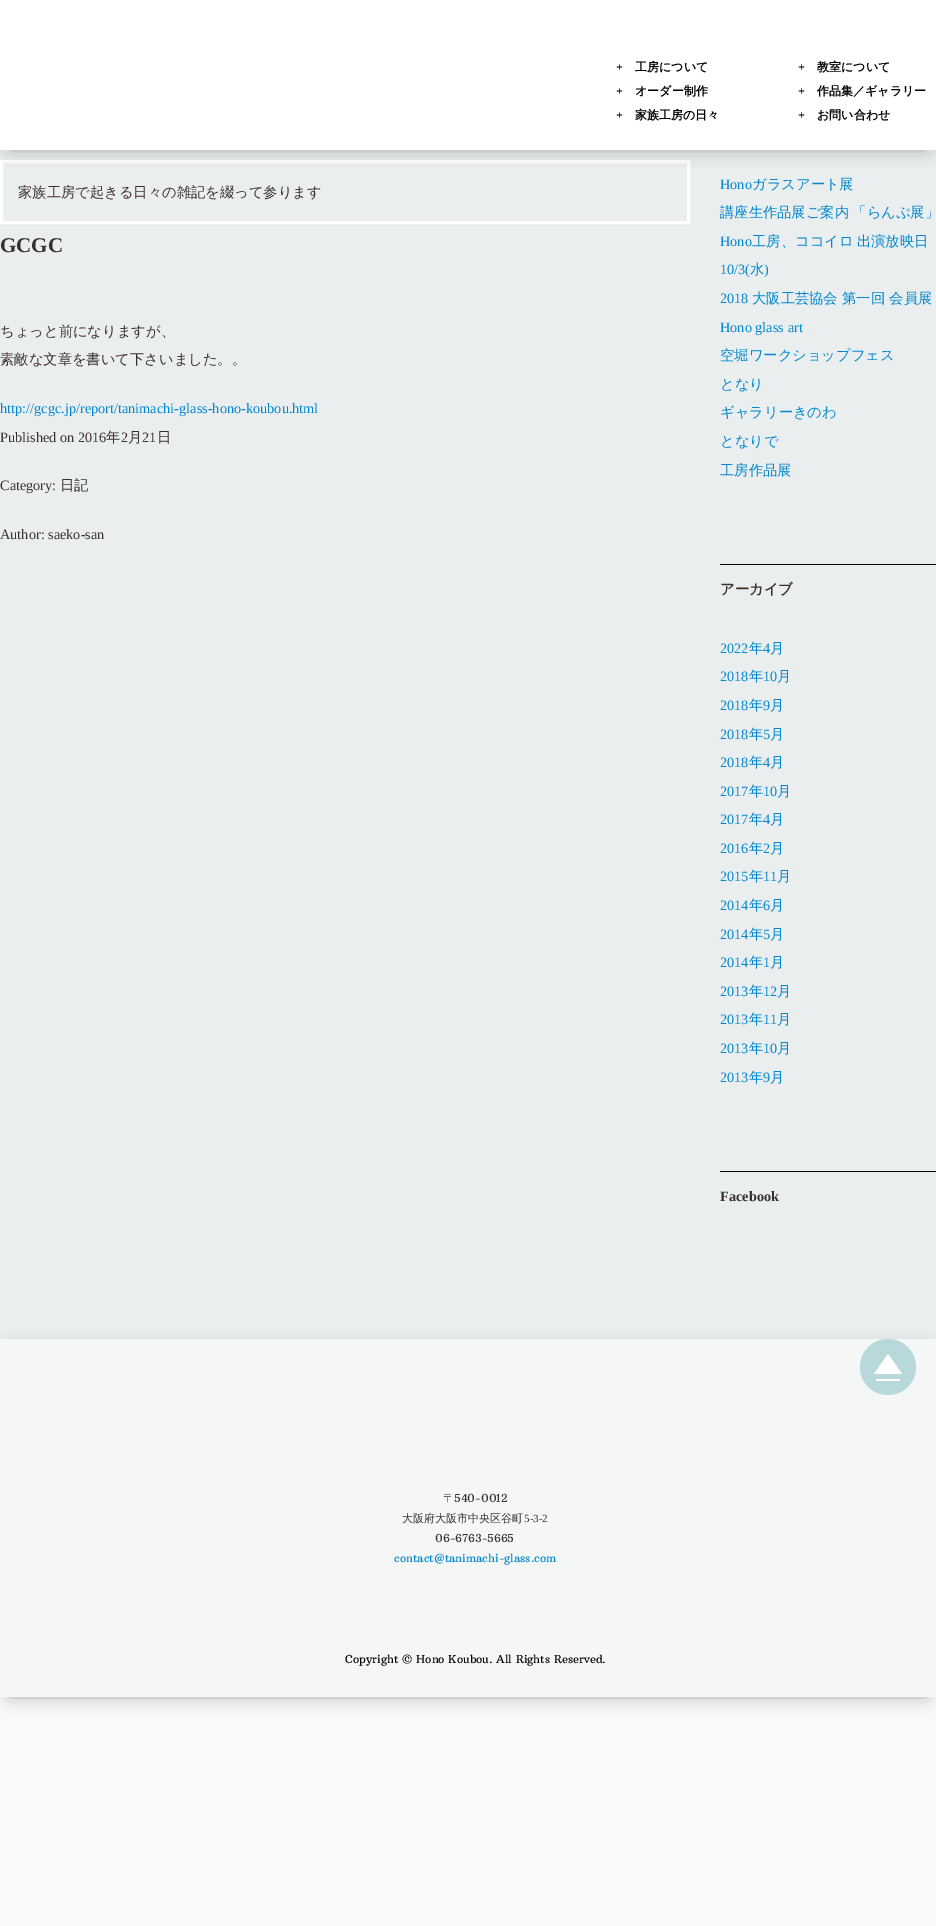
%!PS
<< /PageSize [936 1926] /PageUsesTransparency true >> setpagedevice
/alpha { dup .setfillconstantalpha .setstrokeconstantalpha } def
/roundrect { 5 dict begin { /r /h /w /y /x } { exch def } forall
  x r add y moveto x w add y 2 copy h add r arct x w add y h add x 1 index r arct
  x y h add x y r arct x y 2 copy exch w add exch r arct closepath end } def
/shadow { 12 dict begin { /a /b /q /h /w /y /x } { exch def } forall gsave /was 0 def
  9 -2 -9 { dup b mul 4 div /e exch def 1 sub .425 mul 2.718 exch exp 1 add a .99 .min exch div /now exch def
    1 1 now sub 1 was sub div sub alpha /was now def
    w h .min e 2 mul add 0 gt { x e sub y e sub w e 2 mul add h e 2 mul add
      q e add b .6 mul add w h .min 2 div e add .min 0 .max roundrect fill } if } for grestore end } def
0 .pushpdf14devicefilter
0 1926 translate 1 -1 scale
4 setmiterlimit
0.976 setgray
0 0 936 1926 rectfill
0.918 0.933 0.933 setrgbcolor
0 150 936 1189 rectfill
1 setgray
3 setlinewidth
1.5 161.5 687 61 rectstroke
0.467 setgray
10 15 916 130 0 10 1 shadow
1 setgray
0 0 936 150 rectfill
/LiberationSerif-Bold [12 0 0 -12 0 0] selectfont
0 setgray
616 71 moveto (+) show
/WenQuanYiZenHei-Bold [12 0 0 -12 0 0] selectfont
635 71 moveto (工房について) show
/LiberationSerif-Bold [12 0 0 -12 0 0] selectfont
798 71 moveto (+) show
/WenQuanYiZenHei-Bold [12 0 0 -12 0 0] selectfont
817 71 moveto (教室について) show
/LiberationSerif-Bold [12 0 0 -12 0 0] selectfont
616 95 moveto (+) show
/WenQuanYiZenHei-Bold [12 0 0 -12 0 0] selectfont
635 95 moveto (オーダー制作) show
/LiberationSerif-Bold [12 0 0 -12 0 0] selectfont
798 95 moveto (+) show
/WenQuanYiZenHei-Bold [12 0 0 -12 0 0] selectfont
817 95 moveto (作品集／ギャラリー) show
/LiberationSerif-Bold [12 0 0 -12 0 0] selectfont
616 119 moveto (+) show
/WenQuanYiZenHei-Bold [12 0 0 -12 0 0] selectfont
635 119 moveto (家族工房の日々) show
/LiberationSerif-Bold [12 0 0 -12 0 0] selectfont
798 119 moveto (+) show
/WenQuanYiZenHei-Bold [12 0 0 -12 0 0] selectfont
817 119 moveto (お問い合わせ) show
/WenQuanYiZenHei-Medium [14.3 0 0 -14.3 0 0] selectfont
0.224 0.184 0.184 setrgbcolor
18 197 moveto (家族工房で起きる日々の雑記を綴って参ります) show
/LiberationSerif-Bold [21 0 0 -21 0 0] selectfont
0 252 moveto (GCGC) show
/WenQuanYiZenHei-Medium [14.3 0 0 -14.3 0 0] selectfont
0 336 moveto (ちょっと前になりますが、) show
0 364 moveto (素敵な文章を書いて下さいました。。) show
/LiberationSerif-Regular [14.3 0 0 -14.3 0 0] selectfont
0 0.525 0.804 setrgbcolor
0 413 moveto (http://gcgc.jp/report/tanimachi-glass-hono-koubou.html) show
0.224 0.184 0.184 setrgbcolor
0 442 moveto (Published on 2016) show
/WenQuanYiZenHei-Medium [14.3 0 0 -14.3 0 0] selectfont
106 442 moveto (年) show
/LiberationSerif-Regular [14.3 0 0 -14.3 0 0] selectfont
121 442 moveto (2) show
/WenQuanYiZenHei-Medium [14.3 0 0 -14.3 0 0] selectfont
128 442 moveto (月) show
/LiberationSerif-Regular [14.3 0 0 -14.3 0 0] selectfont
142 442 moveto (21) show
/WenQuanYiZenHei-Medium [14.3 0 0 -14.3 0 0] selectfont
157 442 moveto (日) show
/LiberationSerif-Regular [14.3 0 0 -14.3 0 0] selectfont
0 490 moveto (Category:) show
/WenQuanYiZenHei-Medium [14.3 0 0 -14.3 0 0] selectfont
60 490 moveto (日記) show
/LiberationSerif-Regular [14.3 0 0 -14.3 0 0] selectfont
0 539 moveto (Author: saeko-san) show
0 0.525 0.804 setrgbcolor
720 189 moveto (Hono) show
/WenQuanYiZenHei-Medium [14.3 0 0 -14.3 0 0] selectfont
752 189 moveto (ガラスアート展) show
720 217 moveto -1 0 32 (講座生作品展ご案内 「らんぷ展」) widthshow
/LiberationSerif-Regular [14.3 0 0 -14.3 0 0] selectfont
720 246 moveto (Hono) show
/WenQuanYiZenHei-Medium [14.3 0 0 -14.3 0 0] selectfont
752 246 moveto -1 0 32 (工房、ココイロ 出演放映日) widthshow
/LiberationSerif-Regular [14.3 0 0 -14.3 0 0] selectfont
720 274 moveto (10/3\() show
/WenQuanYiZenHei-Medium [14.3 0 0 -14.3 0 0] selectfont
750 274 moveto (水) show
/LiberationSerif-Regular [14.3 0 0 -14.3 0 0] selectfont
764 274 moveto (\)) show
720 303 moveto (2018) show
/WenQuanYiZenHei-Medium [14.3 0 0 -14.3 0 0] selectfont
752 303 moveto (大阪工芸協会 第一回 会員展) show
/LiberationSerif-Regular [14.3 0 0 -14.3 0 0] selectfont
720 332 moveto (Hono glass art) show
/WenQuanYiZenHei-Medium [14.3 0 0 -14.3 0 0] selectfont
720 360 moveto (空堀ワークショップフェス) show
720 389 moveto (となり) show
720 417 moveto (ギャラリーきのわ) show
720 446 moveto (となりで) show
720 475 moveto (工房作品展) show
0 setgray
720 564 216 1 rectfill
/WenQuanYiZenHei-Bold [14.3 0 0 -14.3 0 0] selectfont
0.224 0.184 0.184 setrgbcolor
720 594 moveto (アーカイブ) show
/LiberationSerif-Regular [14.3 0 0 -14.3 0 0] selectfont
0 0.525 0.804 setrgbcolor
720 653 moveto (2022) show
/WenQuanYiZenHei-Medium [14.3 0 0 -14.3 0 0] selectfont
749 653 moveto (年) show
/LiberationSerif-Regular [14.3 0 0 -14.3 0 0] selectfont
763 653 moveto (4) show
/WenQuanYiZenHei-Medium [14.3 0 0 -14.3 0 0] selectfont
770 653 moveto (月) show
/LiberationSerif-Regular [14.3 0 0 -14.3 0 0] selectfont
720 681 moveto (2018) show
/WenQuanYiZenHei-Medium [14.3 0 0 -14.3 0 0] selectfont
749 681 moveto (年) show
/LiberationSerif-Regular [14.3 0 0 -14.3 0 0] selectfont
763 681 moveto (10) show
/WenQuanYiZenHei-Medium [14.3 0 0 -14.3 0 0] selectfont
777 681 moveto (月) show
/LiberationSerif-Regular [14.3 0 0 -14.3 0 0] selectfont
720 710 moveto (2018) show
/WenQuanYiZenHei-Medium [14.3 0 0 -14.3 0 0] selectfont
749 710 moveto (年) show
/LiberationSerif-Regular [14.3 0 0 -14.3 0 0] selectfont
763 710 moveto (9) show
/WenQuanYiZenHei-Medium [14.3 0 0 -14.3 0 0] selectfont
770 710 moveto (月) show
/LiberationSerif-Regular [14.3 0 0 -14.3 0 0] selectfont
720 739 moveto (2018) show
/WenQuanYiZenHei-Medium [14.3 0 0 -14.3 0 0] selectfont
749 739 moveto (年) show
/LiberationSerif-Regular [14.3 0 0 -14.3 0 0] selectfont
763 739 moveto (5) show
/WenQuanYiZenHei-Medium [14.3 0 0 -14.3 0 0] selectfont
770 739 moveto (月) show
/LiberationSerif-Regular [14.3 0 0 -14.3 0 0] selectfont
720 767 moveto (2018) show
/WenQuanYiZenHei-Medium [14.3 0 0 -14.3 0 0] selectfont
749 767 moveto (年) show
/LiberationSerif-Regular [14.3 0 0 -14.3 0 0] selectfont
763 767 moveto (4) show
/WenQuanYiZenHei-Medium [14.3 0 0 -14.3 0 0] selectfont
770 767 moveto (月) show
/LiberationSerif-Regular [14.3 0 0 -14.3 0 0] selectfont
720 796 moveto (2017) show
/WenQuanYiZenHei-Medium [14.3 0 0 -14.3 0 0] selectfont
749 796 moveto (年) show
/LiberationSerif-Regular [14.3 0 0 -14.3 0 0] selectfont
763 796 moveto (10) show
/WenQuanYiZenHei-Medium [14.3 0 0 -14.3 0 0] selectfont
777 796 moveto (月) show
/LiberationSerif-Regular [14.3 0 0 -14.3 0 0] selectfont
720 824 moveto (2017) show
/WenQuanYiZenHei-Medium [14.3 0 0 -14.3 0 0] selectfont
749 824 moveto (年) show
/LiberationSerif-Regular [14.3 0 0 -14.3 0 0] selectfont
763 824 moveto (4) show
/WenQuanYiZenHei-Medium [14.3 0 0 -14.3 0 0] selectfont
770 824 moveto (月) show
/LiberationSerif-Regular [14.3 0 0 -14.3 0 0] selectfont
720 853 moveto (2016) show
/WenQuanYiZenHei-Medium [14.3 0 0 -14.3 0 0] selectfont
749 853 moveto (年) show
/LiberationSerif-Regular [14.3 0 0 -14.3 0 0] selectfont
763 853 moveto (2) show
/WenQuanYiZenHei-Medium [14.3 0 0 -14.3 0 0] selectfont
770 853 moveto (月) show
/LiberationSerif-Regular [14.3 0 0 -14.3 0 0] selectfont
720 881 moveto (2015) show
/WenQuanYiZenHei-Medium [14.3 0 0 -14.3 0 0] selectfont
749 881 moveto (年) show
/LiberationSerif-Regular [14.3 0 0 -14.3 0 0] selectfont
763 881 moveto (11) show
/WenQuanYiZenHei-Medium [14.3 0 0 -14.3 0 0] selectfont
777 881 moveto (月) show
/LiberationSerif-Regular [14.3 0 0 -14.3 0 0] selectfont
720 910 moveto (2014) show
/WenQuanYiZenHei-Medium [14.3 0 0 -14.3 0 0] selectfont
749 910 moveto (年) show
/LiberationSerif-Regular [14.3 0 0 -14.3 0 0] selectfont
763 910 moveto (6) show
/WenQuanYiZenHei-Medium [14.3 0 0 -14.3 0 0] selectfont
770 910 moveto (月) show
/LiberationSerif-Regular [14.3 0 0 -14.3 0 0] selectfont
720 939 moveto (2014) show
/WenQuanYiZenHei-Medium [14.3 0 0 -14.3 0 0] selectfont
749 939 moveto (年) show
/LiberationSerif-Regular [14.3 0 0 -14.3 0 0] selectfont
763 939 moveto (5) show
/WenQuanYiZenHei-Medium [14.3 0 0 -14.3 0 0] selectfont
770 939 moveto (月) show
/LiberationSerif-Regular [14.3 0 0 -14.3 0 0] selectfont
720 967 moveto (2014) show
/WenQuanYiZenHei-Medium [14.3 0 0 -14.3 0 0] selectfont
749 967 moveto (年) show
/LiberationSerif-Regular [14.3 0 0 -14.3 0 0] selectfont
763 967 moveto (1) show
/WenQuanYiZenHei-Medium [14.3 0 0 -14.3 0 0] selectfont
770 967 moveto (月) show
/LiberationSerif-Regular [14.3 0 0 -14.3 0 0] selectfont
720 996 moveto (2013) show
/WenQuanYiZenHei-Medium [14.3 0 0 -14.3 0 0] selectfont
749 996 moveto (年) show
/LiberationSerif-Regular [14.3 0 0 -14.3 0 0] selectfont
763 996 moveto (12) show
/WenQuanYiZenHei-Medium [14.3 0 0 -14.3 0 0] selectfont
777 996 moveto (月) show
/LiberationSerif-Regular [14.3 0 0 -14.3 0 0] selectfont
720 1024 moveto (2013) show
/WenQuanYiZenHei-Medium [14.3 0 0 -14.3 0 0] selectfont
749 1024 moveto (年) show
/LiberationSerif-Regular [14.3 0 0 -14.3 0 0] selectfont
763 1024 moveto (11) show
/WenQuanYiZenHei-Medium [14.3 0 0 -14.3 0 0] selectfont
777 1024 moveto (月) show
/LiberationSerif-Regular [14.3 0 0 -14.3 0 0] selectfont
720 1053 moveto (2013) show
/WenQuanYiZenHei-Medium [14.3 0 0 -14.3 0 0] selectfont
749 1053 moveto (年) show
/LiberationSerif-Regular [14.3 0 0 -14.3 0 0] selectfont
763 1053 moveto (10) show
/WenQuanYiZenHei-Medium [14.3 0 0 -14.3 0 0] selectfont
777 1053 moveto (月) show
/LiberationSerif-Regular [14.3 0 0 -14.3 0 0] selectfont
720 1082 moveto (2013) show
/WenQuanYiZenHei-Medium [14.3 0 0 -14.3 0 0] selectfont
749 1082 moveto (年) show
/LiberationSerif-Regular [14.3 0 0 -14.3 0 0] selectfont
763 1082 moveto (9) show
/WenQuanYiZenHei-Medium [14.3 0 0 -14.3 0 0] selectfont
770 1082 moveto (月) show
0 setgray
720 1171 216 1 rectfill
/LiberationSerif-Bold [14.3 0 0 -14.3 0 0] selectfont
0.224 0.184 0.184 setrgbcolor
720 1201 moveto (Facebook) show
0.467 setgray
10 1354 916 338 0 10 1 shadow
0.961 0.965 0.965 setrgbcolor
0 1339 936 358 rectfill
0.722 0.847 0.859 setrgbcolor
newpath 888 1367 28 0 360 arc closepath fill
1 setgray
newpath 902 1374 moveto 874 1374 lineto 888 1354 lineto closepath fill
876 1379 24 2 rectfill
/WenQuanYiZenHei-Medium [11.05 0 0 -11.05 0 0] selectfont
0.2 setgray
443 1502 moveto (〒) show
/ArbutusSlab-Regular [11.05 0 0 -11.05 0 0] selectfont
454 1502 moveto (540-0012) show
/WenQuanYiZenHei-Medium [11.05 0 0 -11.05 0 0] selectfont
402 1522 moveto (大阪府大阪市中央区谷町) show
/LiberationSerif-Regular [11.05 0 0 -11.05 0 0] selectfont
524 1522 moveto (5-3-2) show
/ArbutusSlab-Regular [11.05 0 0 -11.05 0 0] selectfont
435 1542 moveto (06-6763-5665) show
0 0.525 0.804 setrgbcolor
394 1562 moveto (contact@tanimachi-glass.com) show
0 setgray
345 1663 moveto (Copyright © Hono Koubou. All Rights Reserved.) show
.poppdf14devicefilter showpage
